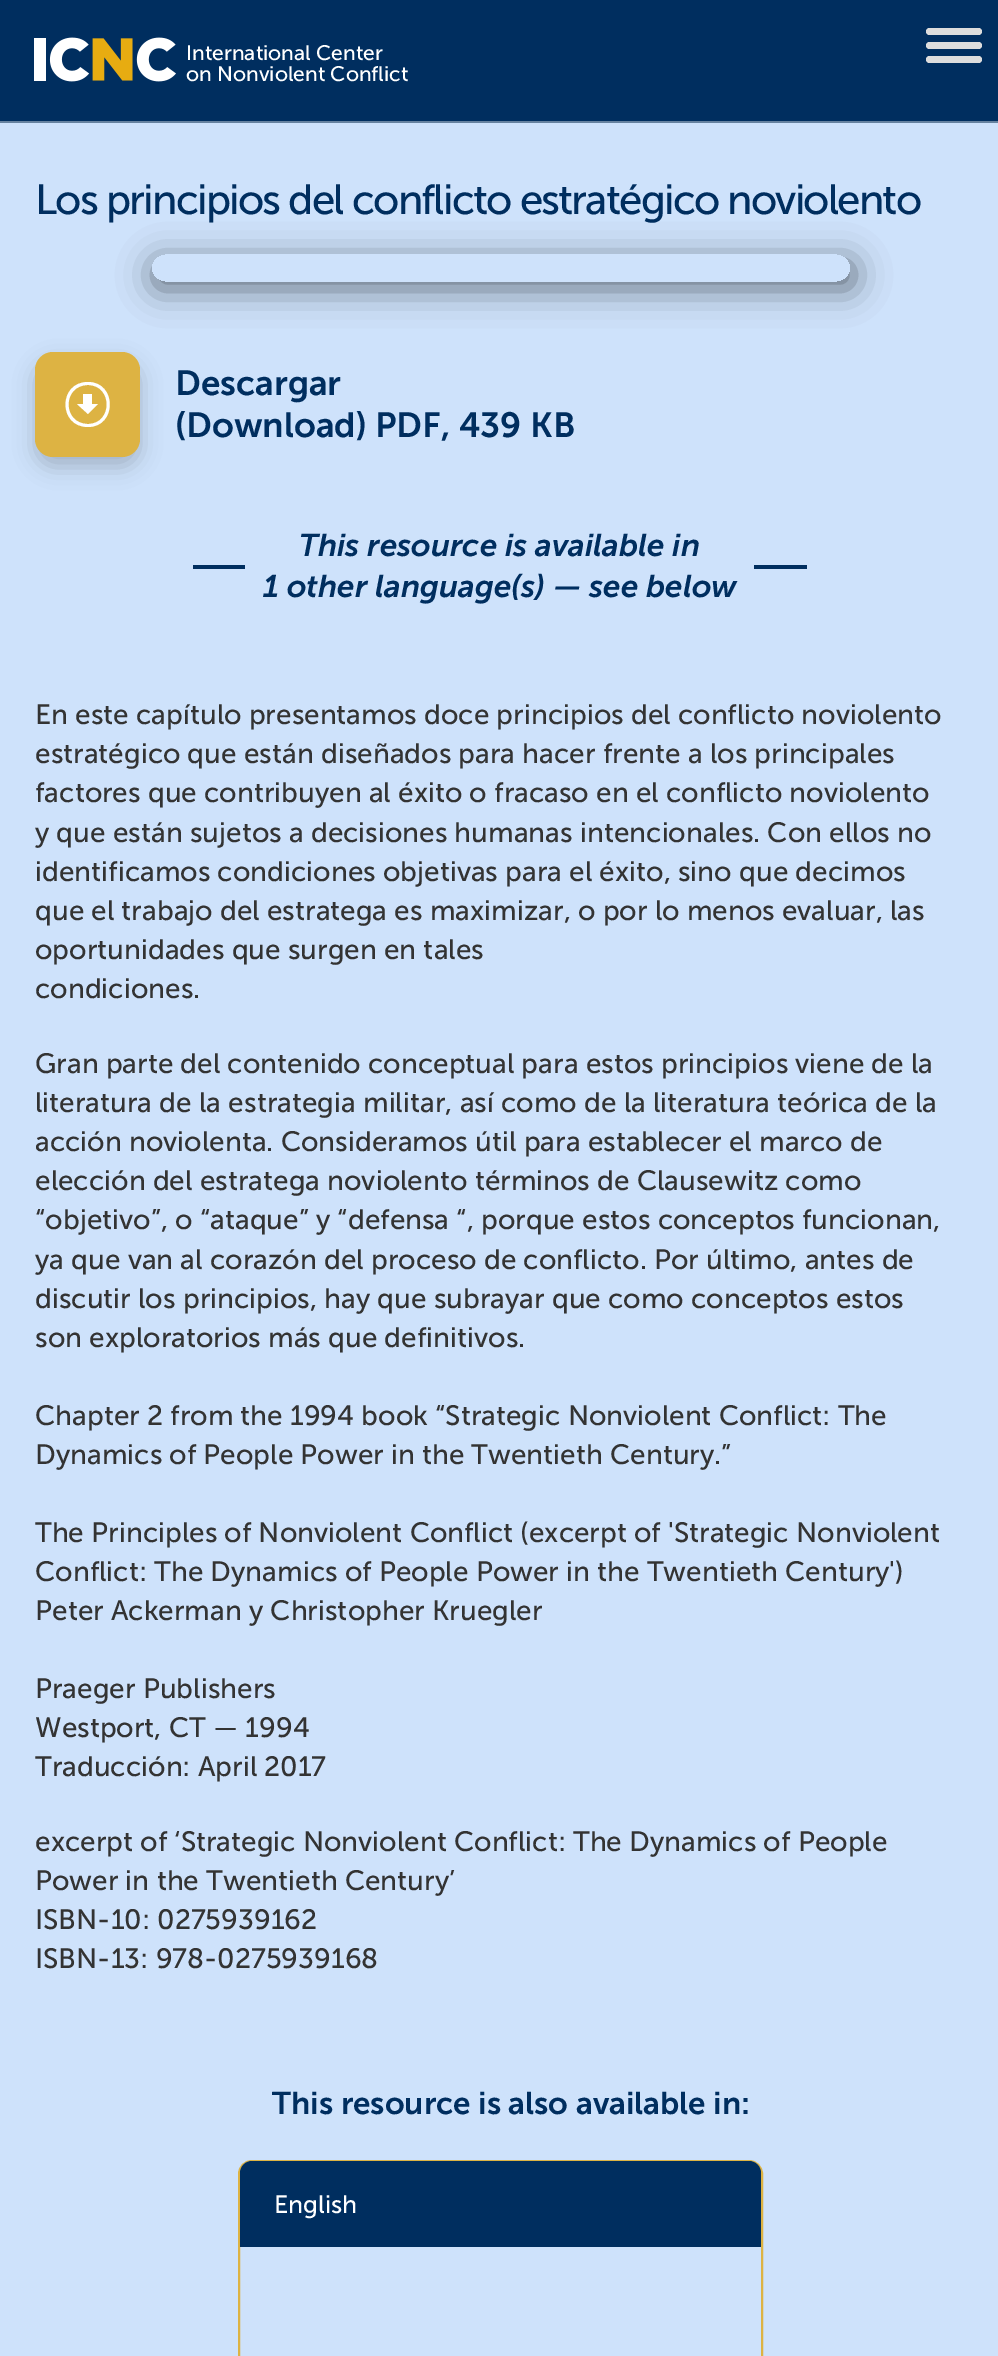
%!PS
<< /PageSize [998 2356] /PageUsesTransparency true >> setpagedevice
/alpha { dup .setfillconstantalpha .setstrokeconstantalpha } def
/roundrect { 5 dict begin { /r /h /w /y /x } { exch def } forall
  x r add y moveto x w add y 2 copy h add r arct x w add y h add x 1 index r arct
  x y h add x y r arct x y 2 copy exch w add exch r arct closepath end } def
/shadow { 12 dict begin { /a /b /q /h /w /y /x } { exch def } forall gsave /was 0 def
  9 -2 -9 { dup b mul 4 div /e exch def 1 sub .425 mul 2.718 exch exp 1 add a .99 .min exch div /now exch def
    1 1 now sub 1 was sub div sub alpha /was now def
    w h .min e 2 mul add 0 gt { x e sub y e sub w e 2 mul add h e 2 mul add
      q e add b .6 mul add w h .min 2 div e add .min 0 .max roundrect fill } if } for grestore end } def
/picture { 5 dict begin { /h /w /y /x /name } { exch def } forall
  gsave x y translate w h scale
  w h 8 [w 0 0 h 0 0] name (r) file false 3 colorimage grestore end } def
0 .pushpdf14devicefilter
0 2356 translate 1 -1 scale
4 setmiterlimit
0.808 0.886 0.984 setrgbcolor
0 0 998 2356 rectfill
0 0.18 0.373 setrgbcolor
0 0 998 121 rectfill
0.4 0.51 0.624 setrgbcolor
0 121 998 2 rectfill
(img1.rgb) 34 37 142 45 picture
/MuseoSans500-Regular [21 0 0 -21 0 0] selectfont
1 setgray
186 60 moveto (International Center) show
186 81 moveto (on Nonviolent Conflict) show
0.867 setgray
926 28 56 7 3.5 roundrect fill
926 42 56 7 3.5 roundrect fill
926 56 56 7 3.5 roundrect fill
/MuseoSans500-Regular [42 0 0 -42 0 0] selectfont
0 0.18 0.373 setrgbcolor
35 214 moveto -1.75 0 (Los principios del conflicto estratégico noviolento) ashow
gsave
newpath 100 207 moveto 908 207 lineto 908 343 lineto 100 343 lineto closepath 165 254 moveto 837 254 lineto 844.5 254 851 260.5 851 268 curveto 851 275.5 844.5 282 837 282 curveto 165 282 lineto 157.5 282 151 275.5 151 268 curveto 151 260.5 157.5 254 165 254 curveto closepath eoclip newpath
0 setgray
154 261 700 28 14 17.5 0.5 shadow
grestore
0 setgray
35 362 105 105 18 10.5 0.2 shadow
0.867 0.702 0.263 setrgbcolor
35 352 105 105 18 roundrect fill
1 setgray
newpath 88 427 moveto 58 427 58 382 88 382 curveto 117 382 117 427 88 427 curveto closepath 88 385 moveto 62 385 62 424 88 424 curveto 113 424 113 385 88 385 curveto closepath 92 404 moveto 92 394 lineto 83 394 lineto 83 404 lineto 77 404 lineto 88 414 lineto 98 404 lineto closepath fill
/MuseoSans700-SemiBold [35 0 0 -35 0 0] selectfont
0 0.18 0.373 setrgbcolor
175 395 moveto (Descargar) show
175 437 moveto (\(Download\) PDF, 439 KB) show
/MuseoSans700-SemiBoldItalic [31.5 0 0 -31.5 0 0] selectfont
299 556 moveto (This resource is available in) show
193 565 52 4 rectfill
754 565 53 4 rectfill
263 597 moveto (1 other language\(s\) — see below) show
/MuseoSans500-Regular [28 0 0 -28 0 0] selectfont
0.2 setgray
35 724 moveto (En este capítulo presentamos doce principios del conflicto noviolento) show
35 763 moveto (estratégico que están diseñados para hacer frente a los principales) show
35 802 moveto (factores que contribuyen al éxito o fracaso en el conflicto noviolento) show
35 842 moveto (y que están sujetos a decisiones humanas intencionales. Con ellos no) show
35 881 moveto (identificamos condiciones objetivas para el éxito, sino que decimos) show
35 920 moveto (que el trabajo del estratega es maximizar, o por lo menos evaluar, las) show
35 959 moveto (oportunidades que surgen en tales) show
35 998 moveto (condiciones.) show
35 1073 moveto (Gran parte del contenido conceptual para estos principios viene de la) show
35 1112 moveto (literatura de la estrategia militar, así como de la literatura teórica de la) show
35 1151 moveto (acción noviolenta. Consideramos útil para establecer el marco de) show
35 1190 moveto (elección del estratega noviolento términos de Clausewitz como) show
35 1229 moveto (“objetivo”, o “ataque” y “defensa “, porque estos conceptos funcionan,) show
35 1269 moveto (ya que van al corazón del proceso de conflicto. Por último, antes de) show
35 1308 moveto (discutir los principios, hay que subrayar que como conceptos estos) show
35 1347 moveto (son exploratorios más que definitivos.) show
35 1425 moveto (Chapter 2 from the 1994 book “Strategic Nonviolent Conflict: The) show
35 1464 moveto (Dynamics of People Power in the Twentieth Century.”) show
35 1542 moveto (The Principles of Nonviolent Conflict \(excerpt of 'Strategic Nonviolent) show
35 1581 moveto (Conflict: The Dynamics of People Power in the Twentieth Century'\)) show
35 1620 moveto (Peter Ackerman y Christopher Kruegler) show
35 1698 moveto (Praeger Publishers) show
35 1737 moveto (Westport, CT — 1994) show
35 1776 moveto (Traducción: April 2017) show
35 1851 moveto (excerpt of ‘Strategic Nonviolent Conflict: The Dynamics of People) show
35 1890 moveto (Power in the Twentieth Century’) show
35 1929 moveto (ISBN-10: 0275939162) show
35 1968 moveto (ISBN-13: 978-0275939168) show
/MuseoSans700-SemiBold [31.5 0 0 -31.5 0 0] selectfont
0 0.18 0.373 setrgbcolor
272 2114 moveto (This resource is also available in:) show
0.867 0.702 0.263 setrgbcolor
2 setlinewidth
239 2161 523 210 13 roundrect stroke
0 0.18 0.373 setrgbcolor
newpath 252 2161 moveto 749 2161 lineto 755.5 2161 761 2166.5 761 2173 curveto 761 2247 lineto 240 2247 lineto 240 2173 lineto 240 2166.5 245.5 2161 252 2161 curveto closepath fill
/MuseoSans500-Regular [25 0 0 -25 0 0] selectfont
1 setgray
274 2213 moveto (English) show
.poppdf14devicefilter showpage
